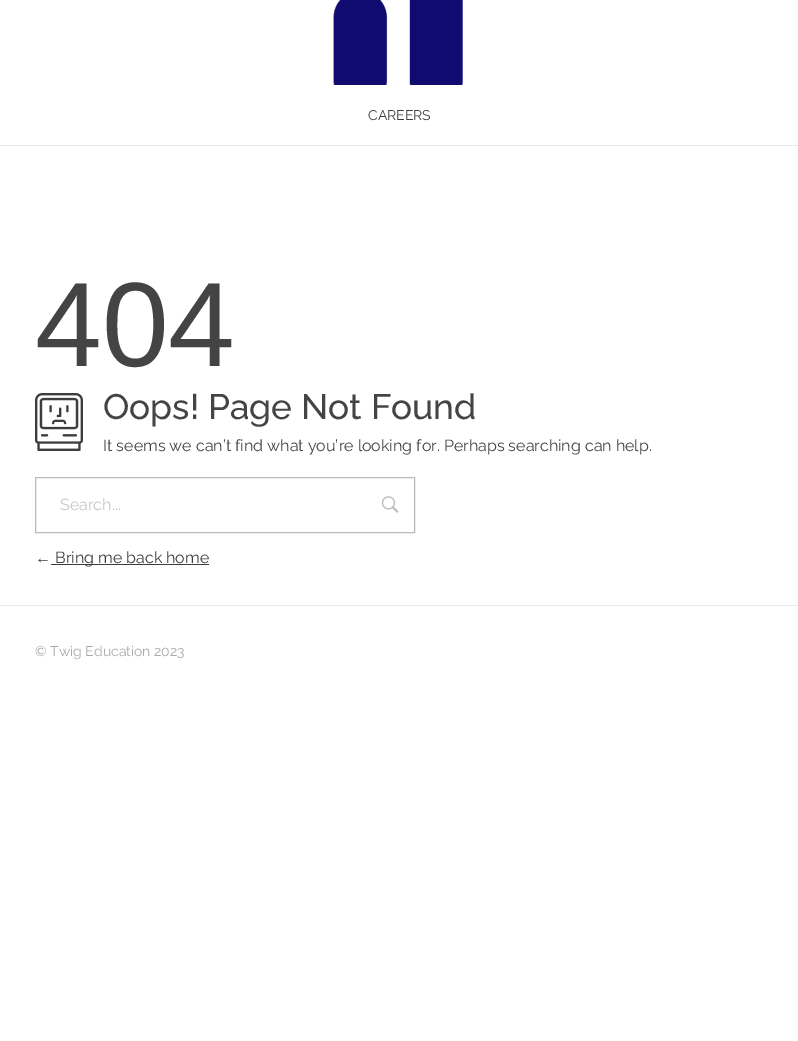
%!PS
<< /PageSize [798 1041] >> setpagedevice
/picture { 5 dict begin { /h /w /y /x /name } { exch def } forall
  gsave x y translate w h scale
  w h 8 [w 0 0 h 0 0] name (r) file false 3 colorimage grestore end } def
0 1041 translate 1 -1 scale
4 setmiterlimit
1 setgray
0 0 798 1041 rectfill
0.918 setgray
0 145 798 1 rectfill
(img1.rgb) 333 0 130 85 picture
/Raleway-Regular [14 0 0 -14 0 0] selectfont
0.239 setgray
368 120 moveto (CAREERS) show
/LiberationSans-Regular [120 0 0 -120 0 0] selectfont
0.267 setgray
35 366 moveto (404) show
(img2.rgb) 35 393 48 58 picture
/Raleway-Medium [35.25 0 0 -35.25 0 0] selectfont
103 419 moveto (Oops! Page Not Found) show
/Raleway-Regular [16 0 0 -16 0 0] selectfont
103 451 moveto (It seems we can’t find what you’re looking for. Perhaps searching can help.) show
0.733 setgray
35.5 477.5 379 55 rectstroke
0.773 setgray
60 510 moveto (Search...) show
(img3.rgb) 381 496 18 17 picture
/LiberationSans-Regular [16 0 0 -16 0 0] selectfont
0.239 setgray
35 563 moveto (←) show
51 564 158 1 rectfill
/Raleway-Regular [16 0 0 -16 0 0] selectfont
55 563 moveto (Bring me back home) show
0.918 setgray
0 605 798 1 rectfill
/Raleway-Regular [14 0 0 -14 0 0] selectfont
0.667 setgray
35 656 moveto (© Twig Education 2023) show
showpage
